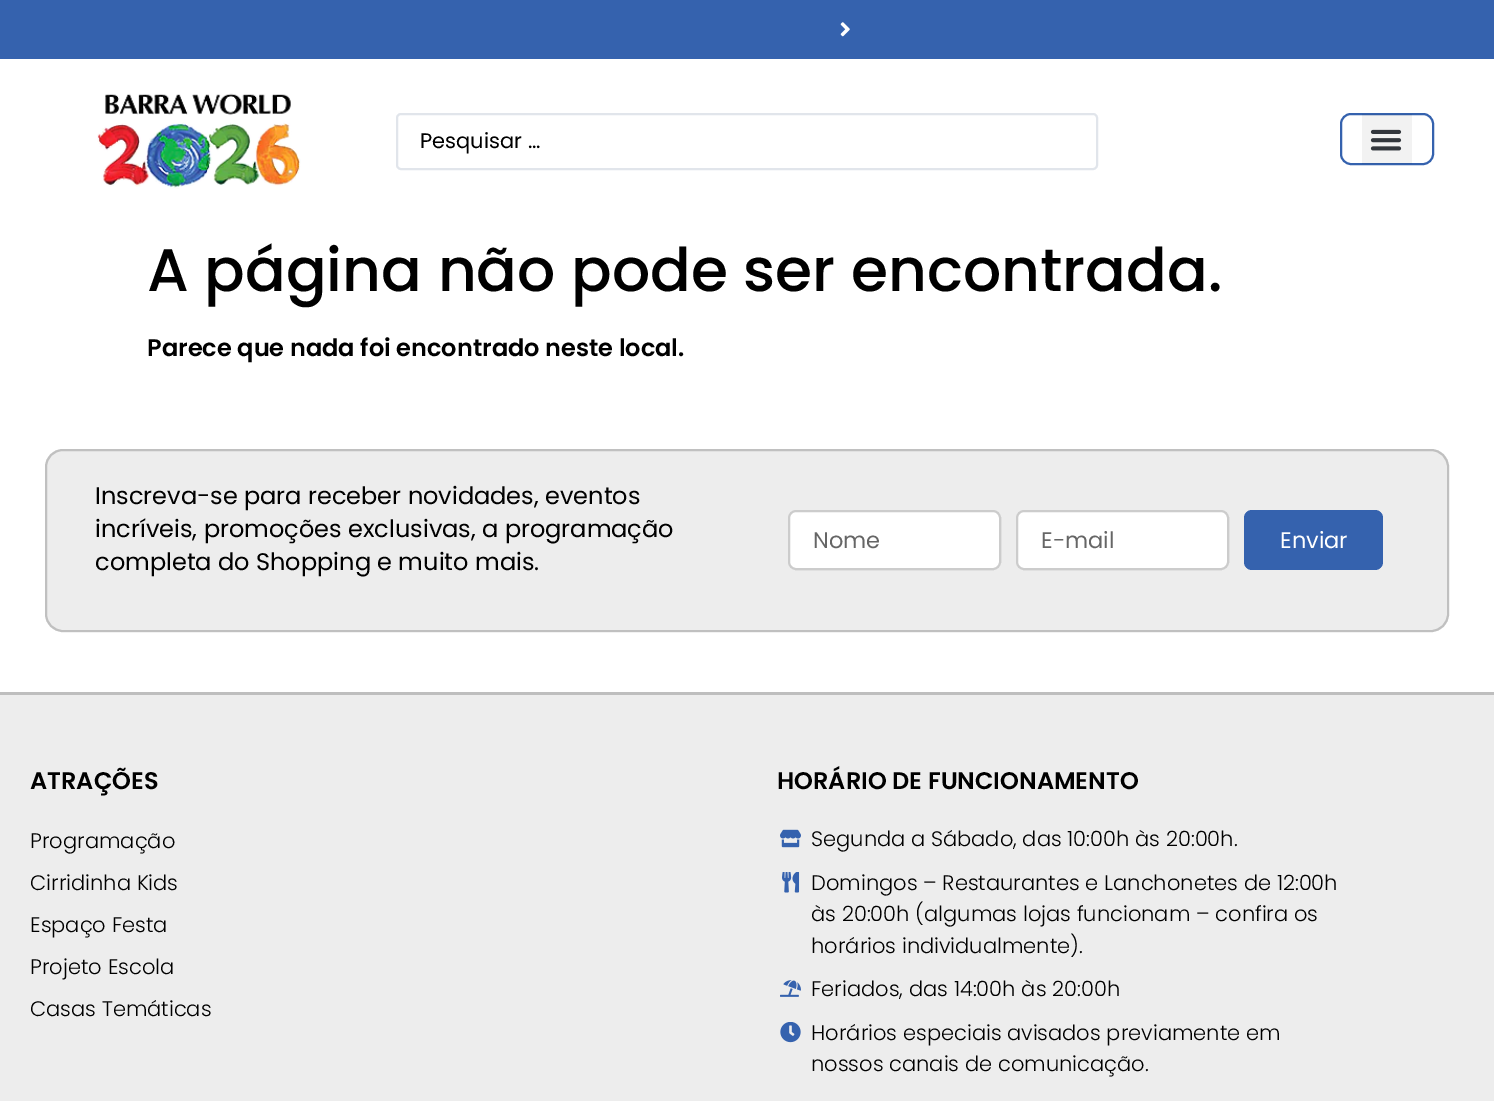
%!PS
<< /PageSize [1494 1101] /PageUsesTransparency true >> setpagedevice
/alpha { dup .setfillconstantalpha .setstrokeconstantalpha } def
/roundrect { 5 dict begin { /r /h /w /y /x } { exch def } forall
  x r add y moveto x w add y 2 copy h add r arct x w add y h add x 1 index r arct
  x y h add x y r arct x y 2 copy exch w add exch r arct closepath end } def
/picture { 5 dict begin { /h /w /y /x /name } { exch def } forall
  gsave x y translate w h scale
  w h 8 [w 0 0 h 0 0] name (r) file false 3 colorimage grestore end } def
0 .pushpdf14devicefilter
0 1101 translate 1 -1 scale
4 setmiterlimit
1 setgray
0 0 1494 1101 rectfill
0.208 0.384 0.682 setrgbcolor
0 0 1494 59 rectfill
(img1.rgb) 840 22 10 15 picture
(img2.rgb) 97 93 204 96 picture
0.882 0.898 0.922 setrgbcolor
2 setlinewidth
397 114 700 55 4 roundrect stroke
/Poppins-Regular [21 0 0 -21 0 0] selectfont
0 setgray
420 148 moveto (Pesquisar ...) show
0.208 0.384 0.682 setrgbcolor
1341 114 92 50 10 roundrect stroke
0.05 alpha
0 setgray
1362 114 50 50 rectfill
1 alpha
(img3.rgb) 1370 129 32 22 picture
/Poppins-Medium [60 0 0 -60 0 0] selectfont
147 291 moveto (A página não pode ser encontrada.) show
/Poppins-SemiBold [24 0 0 -24 0 0] selectfont
147 356 moveto (Parece que nada foi encontrado neste local.) show
0.929 setgray
45 449 1404 183 18 roundrect fill
0.19 alpha
0 setgray
46 450 1402 181 17 roundrect stroke
/Poppins-Regular [24 0 0 -24 0 0] selectfont
1 alpha
95 504 moveto (Inscreva-se para receber novidades, eventos) show
95 537 moveto (incríveis, promoções exclusivas, a programação) show
95 570 moveto (completa do Shopping e muito mais.) show
1 setgray
788 510 213 60 8 roundrect fill
0.2 alpha
0 setgray
789 511 211 58 7 roundrect stroke
/Poppins-Regular [22.5 0 0 -22.5 0 0] selectfont
1 alpha
0.4 setgray
813 548 moveto (Nome) show
1 setgray
1016 510 213 60 8 roundrect fill
0.2 alpha
0 setgray
1017 511 211 58 7 roundrect stroke
1 alpha
0.4 setgray
1041 548 moveto (E-mail) show
0.208 0.384 0.682 setrgbcolor
1244 510 139 60 8 roundrect fill
1 setgray
1280 548 moveto (Enviar) show
0.745 setgray
0 692 1494 3 rectfill
0.929 setgray
0 695 1494 406 rectfill
/Poppins-SemiBold [24 0 0 -24 0 0] selectfont
0 setgray
30 789 moveto (ATRAÇÕES) show
/Poppins-Light [21 0 0 -21 0 0] selectfont
30 848 moveto (Programação) show
30 890 moveto (Cirridinha Kids) show
30 932 moveto (Espaço Festa) show
30 974 moveto (Projeto Escola) show
30 1016 moveto (Casas Temáticas) show
/Poppins-SemiBold [24 0 0 -24 0 0] selectfont
777 789 moveto (HORÁRIO DE FUNCIONAMENTO) show
(img4.rgb) 780 829 21 19 picture
/Poppins-Light [21 0 0 -21 0 0] selectfont
811 846 moveto (Segunda a Sábado, das 10:00h às 20:00h.) show
(img5.rgb) 782 872 18 21 picture
811 890 moveto (Domingos – Restaurantes e Lanchonetes de 12:00h) show
811 921 moveto (às 20:00h \(algumas lojas funcionam – confira os) show
811 953 moveto (horários individualmente\).) show
(img6.rgb) 780 980 21 17 picture
811 996 moveto (Feriados, das 14:00h às 20:00h) show
(img7.rgb) 780 1022 21 21 picture
811 1040 moveto (Horários especiais avisados previamente em) show
811 1071 moveto (nossos canais de comunicação.) show
.poppdf14devicefilter showpage
